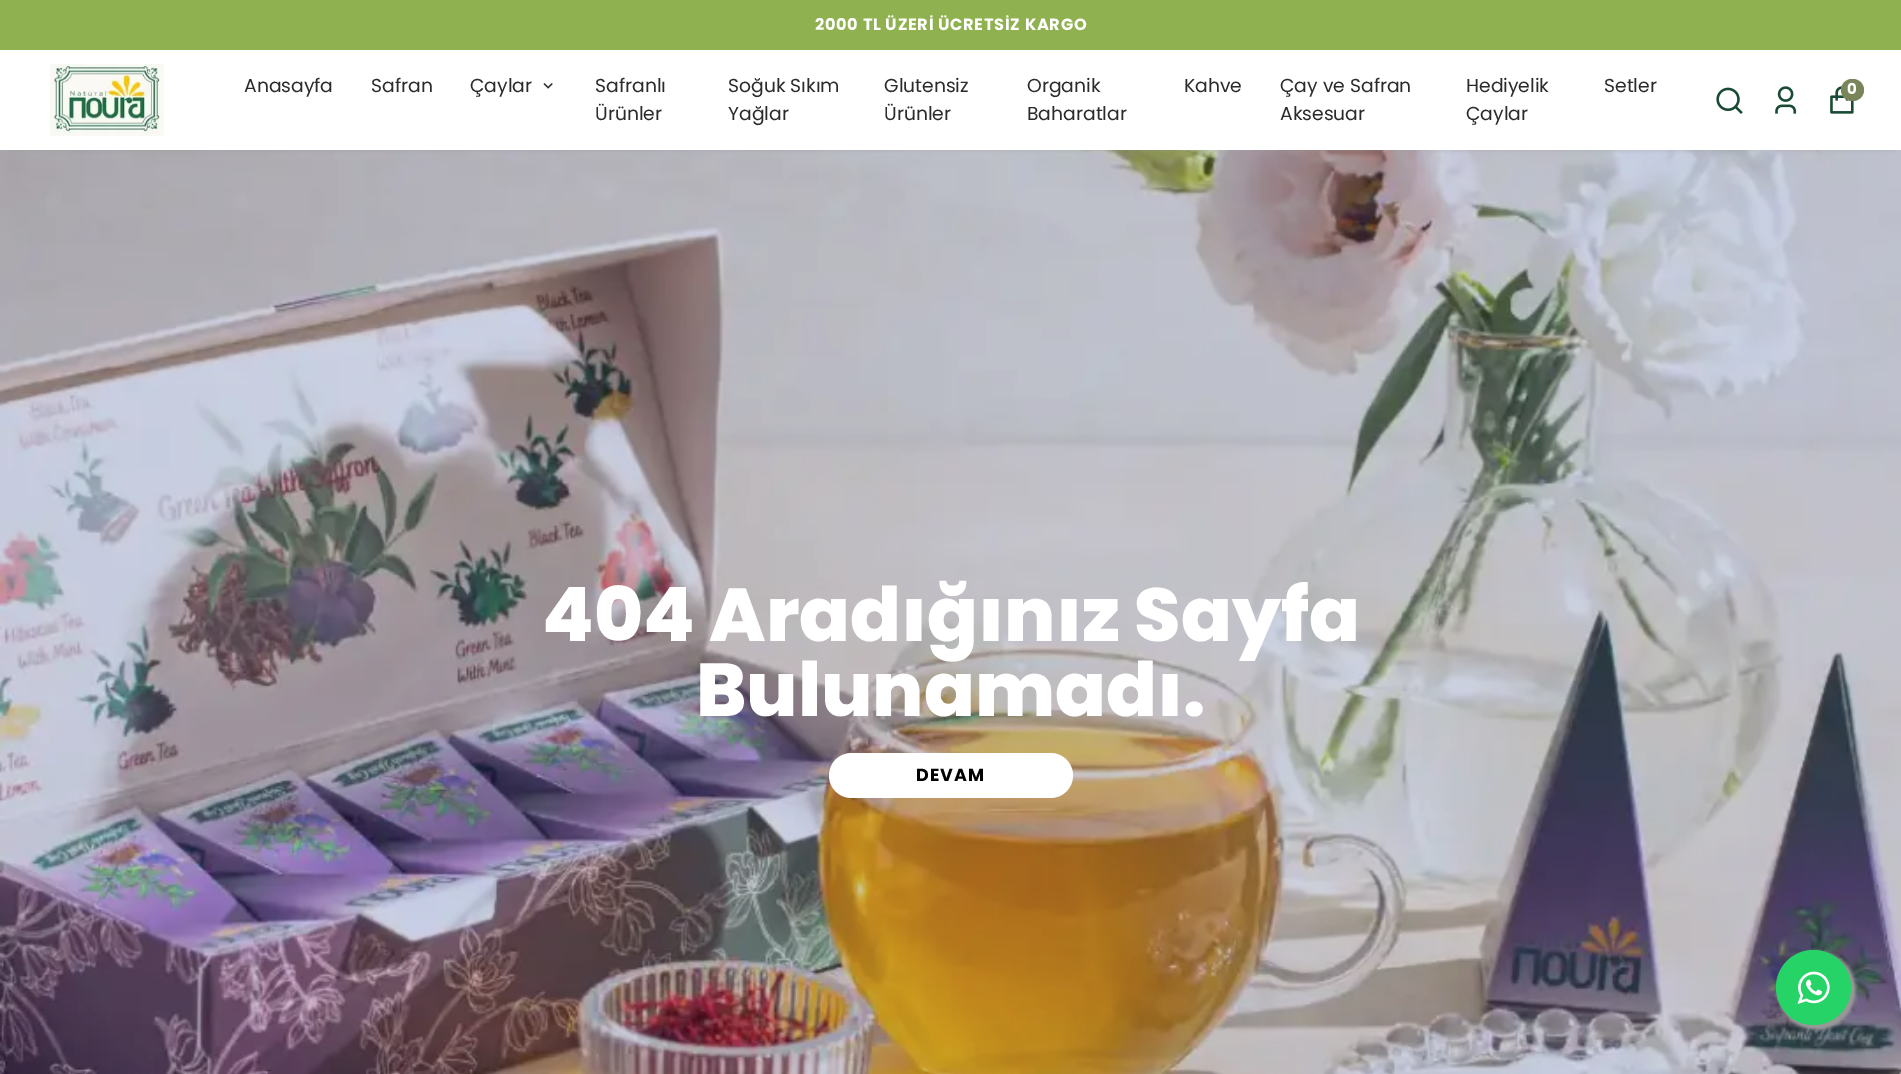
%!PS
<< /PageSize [1901 1074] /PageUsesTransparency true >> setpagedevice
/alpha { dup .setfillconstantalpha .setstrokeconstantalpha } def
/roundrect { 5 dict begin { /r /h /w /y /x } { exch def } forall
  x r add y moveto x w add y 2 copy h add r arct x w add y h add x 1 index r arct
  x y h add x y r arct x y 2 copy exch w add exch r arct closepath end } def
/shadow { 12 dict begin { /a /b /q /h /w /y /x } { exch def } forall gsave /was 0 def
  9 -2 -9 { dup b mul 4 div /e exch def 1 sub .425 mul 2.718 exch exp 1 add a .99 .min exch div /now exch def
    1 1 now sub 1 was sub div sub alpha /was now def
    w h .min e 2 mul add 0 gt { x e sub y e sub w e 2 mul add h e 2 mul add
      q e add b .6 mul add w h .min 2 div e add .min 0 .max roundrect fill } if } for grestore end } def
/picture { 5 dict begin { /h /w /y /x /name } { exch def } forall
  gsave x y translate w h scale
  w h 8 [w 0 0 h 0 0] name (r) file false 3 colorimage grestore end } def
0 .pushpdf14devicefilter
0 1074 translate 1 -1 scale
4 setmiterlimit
1 setgray
0 0 1901 1074 rectfill
0.561 0.694 0.31 setrgbcolor
0 0 1901 50 rectfill
/Poppins-Bold [16.25 0 0 -16.25 0 0] selectfont
1 setgray
815 30 moveto 0.65 0 (2000 TL ÜZERİ ÜCRETSİZ KARGO) ashow
(img6.rgb) 0 150 1901 924 picture
gsave
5 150 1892 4 rectclip
0.596 setgray
9 65 1884 83 0 3 1 shadow
grestore
(img1.rgb) 50 64 114 72 picture
/Poppins-Regular [18.75 0 0 -18.75 0 0] selectfont
0.169 setgray
244 92 moveto (Anasayfa) show
371 92 moveto (Safran) show
470 92 moveto (Çaylar) show
(img2.rgb) 543 83 10 6 picture
595 92 moveto (Safranlı) show
595 120 moveto (Ürünler) show
728 92 moveto (Soğuk Sıkım) show
728 120 moveto (Yağlar) show
884 92 moveto (Glutensiz) show
884 120 moveto (Ürünler) show
1027 92 moveto (Organik) show
1027 120 moveto (Baharatlar) show
1184 92 moveto (Kahve) show
1280 92 moveto (Çay ve Safran) show
1280 120 moveto (Aksesuar) show
1466 92 moveto (Hediyelik) show
1466 120 moveto (Çaylar) show
1604 92 moveto (Setler) show
(img3.rgb) 1716 87 27 27 picture
(img4.rgb) 1775 86 22 28 picture
(img5.rgb) 1830 86 24 28 picture
0.471 0.522 0.349 setrgbcolor
1841 79 23 22 11 roundrect fill
/Poppins-Bold [15 0 0 -15 0 0] selectfont
1 setgray
1847 94 moveto (0) show
/Poppins-ExtraBold [75 0 0 -75 0 0] selectfont
542 641 moveto (404 Aradığınız Sayfa) show
696 716 moveto (Bulunamadı.) show
829 753 244 45 22.5 roundrect fill
/Poppins-Bold [17.5 0 0 -17.5 0 0] selectfont
0 setgray
916 781 moveto 1 0 (DEVAM) ashow
0.6 setgray
1779 953 75 75 37.5 2 1 shadow
1779 953 75 75 37.5 2 1 shadow
1779 953 75 75 37.5 2 1 shadow
0.145 0.827 0.4 setrgbcolor
newpath 1813.5 987.5 37.5 0 360 arc closepath fill
(img7.rgb) 1797 971 33 33 picture
.poppdf14devicefilter showpage
